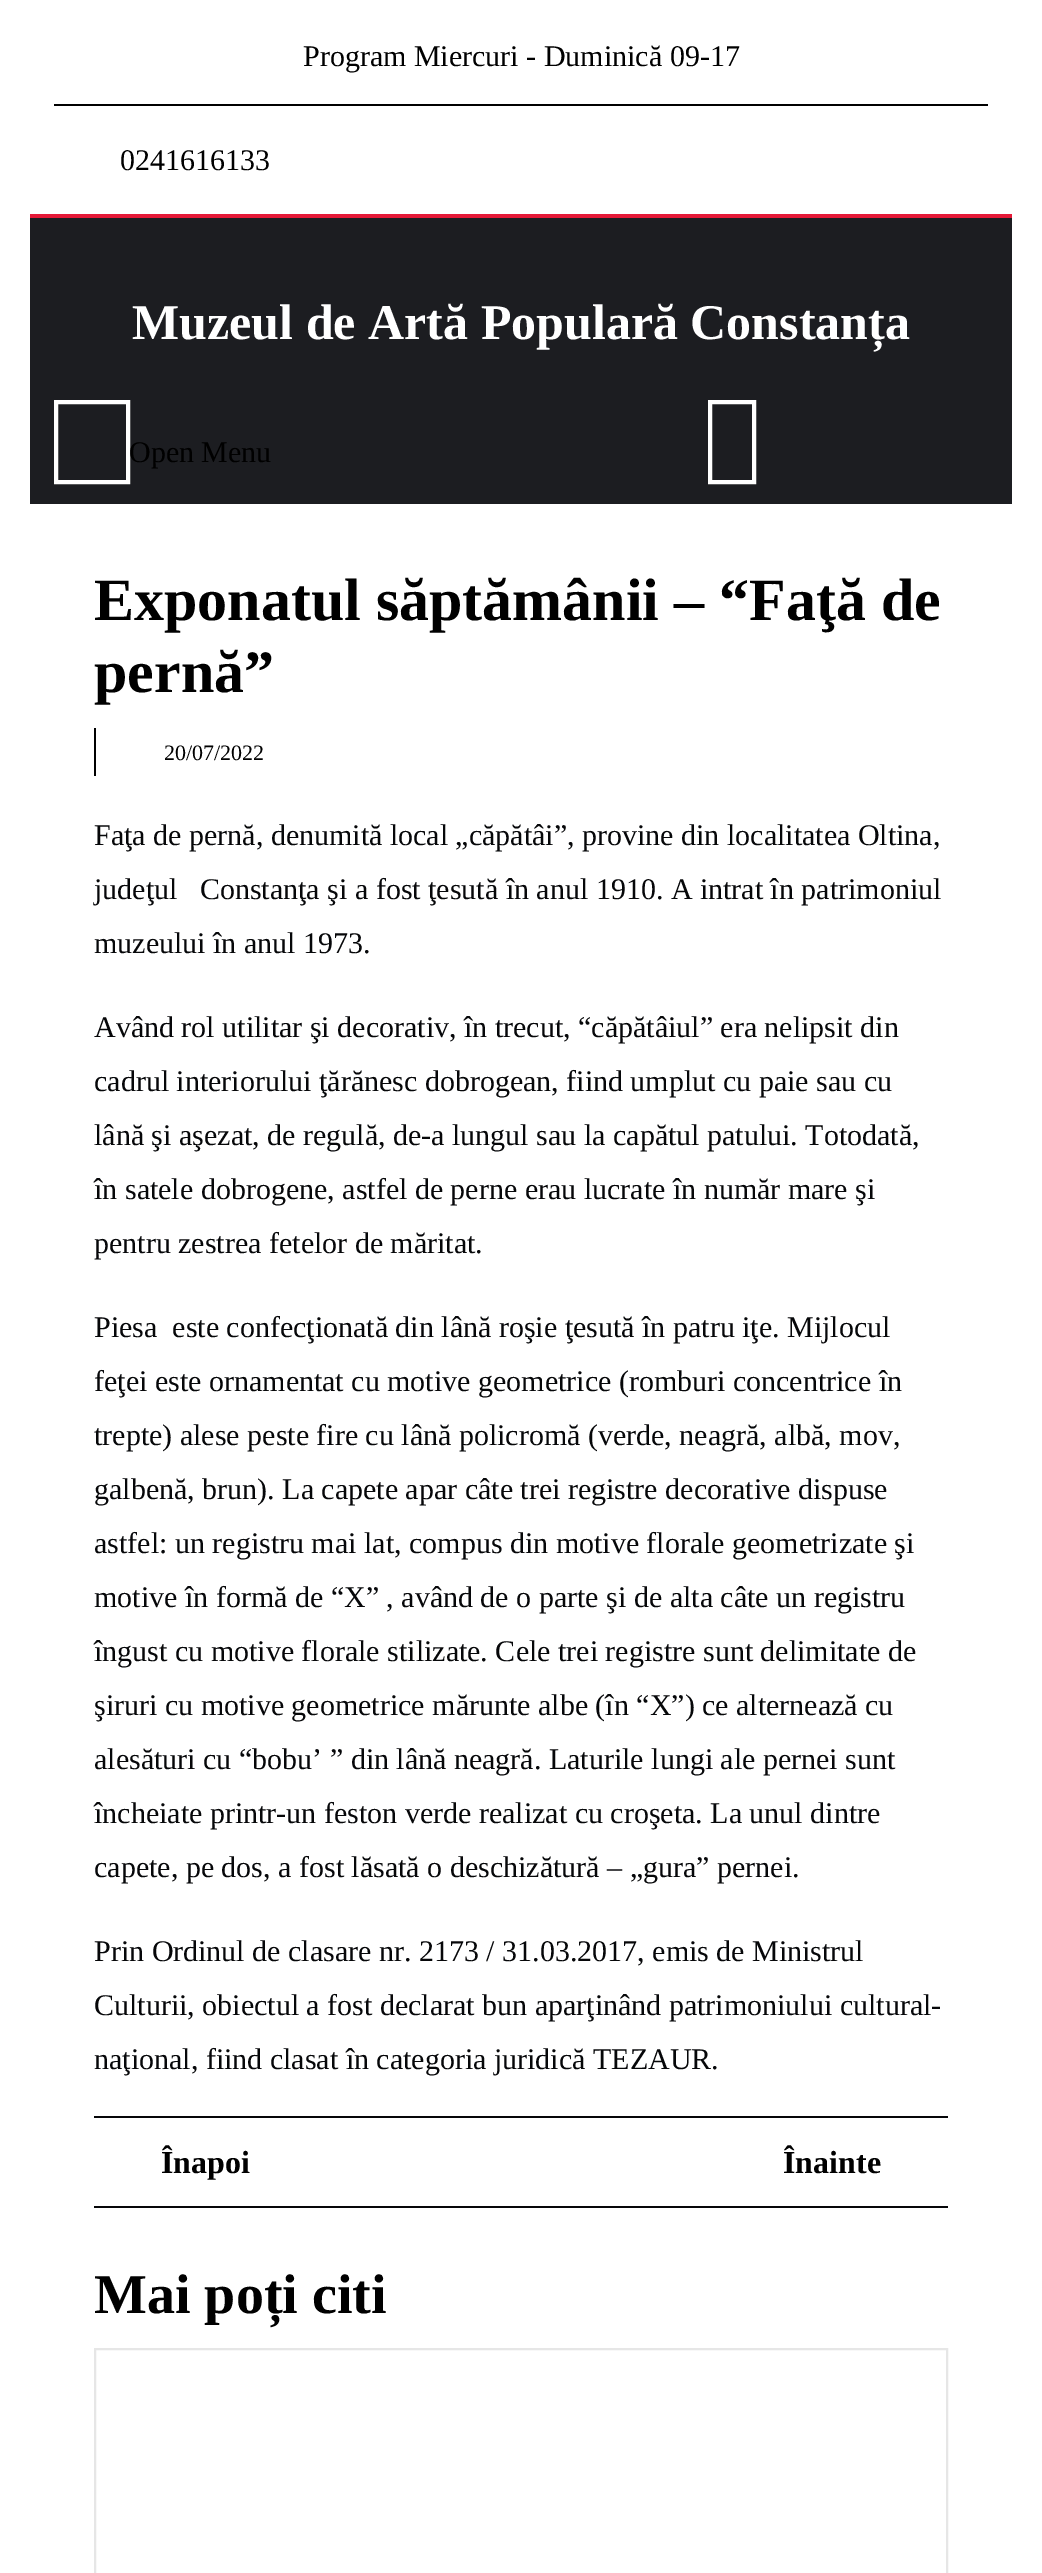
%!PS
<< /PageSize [1042 2573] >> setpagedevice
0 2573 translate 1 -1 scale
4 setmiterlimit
1 setgray
0 0 1042 2573 rectfill
0.898 0.098 0.216 setrgbcolor
30 214 982 4 rectfill
0 setgray
54 104 934 2 rectfill
/LiberationSerif-Regular [30 0 0 -30 0 0] selectfont
303 66 moveto (Program Miercuri - Duminică 09-17) show
120 170 moveto (0241616133) show
0.11 0.114 0.129 setrgbcolor
30 218 982 286 rectfill
/LiberationSerif-Bold [50 0 0 -50 0 0] selectfont
1 setgray
132 339 moveto (Muzeul de Artă Populară Constanța) show
4 setlinewidth
56 402 72 80 rectstroke
/LiberationSerif-Regular [30 0 0 -30 0 0] selectfont
0 setgray
129 462 moveto (Open Menu) show
1 setgray
710 402 44 80 rectstroke
/LiberationSerif-Bold [60 0 0 -60 0 0] selectfont
0 setgray
94 620 moveto (Exponatul săptămânii – “Faţă de) show
94 692 moveto (pernă”) show
94 728 2 48 rectfill
/LiberationSerif-Regular [22 0 0 -22 0 0] selectfont
164 760 moveto (20/07/2022) show
/LiberationSerif-Regular [30 0 0 -30 0 0] selectfont
0.024 0.027 0.035 setrgbcolor
94 845 moveto (Faţa de pernă, denumită local „căpătâi”, provine din localitatea Oltina,) show
94 899 moveto (judeţul   Constanţa şi a fost ţesută în anul 1910. A intrat în patrimoniul) show
94 953 moveto (muzeului în anul 1973.) show
94 1037 moveto (Având rol utilitar şi decorativ, în trecut, “căpătâiul” era nelipsit din) show
94 1091 moveto (cadrul interiorului ţărănesc dobrogean, fiind umplut cu paie sau cu) show
94 1145 moveto (lână şi aşezat, de regulă, de-a lungul sau la capătul patului. Totodată,) show
94 1199 moveto (în satele dobrogene, astfel de perne erau lucrate în număr mare şi) show
94 1253 moveto (pentru zestrea fetelor de măritat.) show
94 1337 moveto (Piesa  este confecţionată din lână roşie ţesută în patru iţe. Mijlocul) show
94 1391 moveto (feţei este ornamentat cu motive geometrice \(romburi concentrice în) show
94 1445 moveto (trepte\) alese peste fire cu lână policromă \(verde, neagră, albă, mov,) show
94 1499 moveto (galbenă, brun\). La capete apar câte trei registre decorative dispuse) show
94 1553 moveto (astfel: un registru mai lat, compus din motive florale geometrizate şi) show
94 1607 moveto (motive în formă de “X” , având de o parte şi de alta câte un registru) show
94 1661 moveto (îngust cu motive florale stilizate. Cele trei registre sunt delimitate de) show
94 1715 moveto (şiruri cu motive geometrice mărunte albe \(în “X”\) ce alternează cu) show
94 1769 moveto (alesături cu “bobu’ ” din lână neagră. Laturile lungi ale pernei sunt) show
94 1823 moveto (încheiate printr-un feston verde realizat cu croşeta. La unul dintre) show
94 1877 moveto (capete, pe dos, a fost lăsată o deschizătură – „gura” pernei.) show
94 1961 moveto (Prin Ordinul de clasare nr. 2173 / 31.03.2017, emis de Ministrul) show
94 2015 moveto (Culturii, obiectul a fost declarat bun aparţinând patrimoniului cultural-) show
94 2069 moveto (naţional, fiind clasat în categoria juridică TEZAUR.) show
94 2116 854 2 rectfill
/LiberationSerif-Bold [32 0 0 -32 0 0] selectfont
0 setgray
161 2173 moveto (Înapoi) show
783 2173 moveto (Înainte) show
0.024 0.027 0.035 setrgbcolor
94 2206 854 2 rectfill
/LiberationSerif-Bold [56 0 0 -56 0 0] selectfont
0 setgray
94 2313 moveto (Mai poți citi) show
0.902 setgray
2 setlinewidth
95 2349 852 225 rectstroke
showpage
